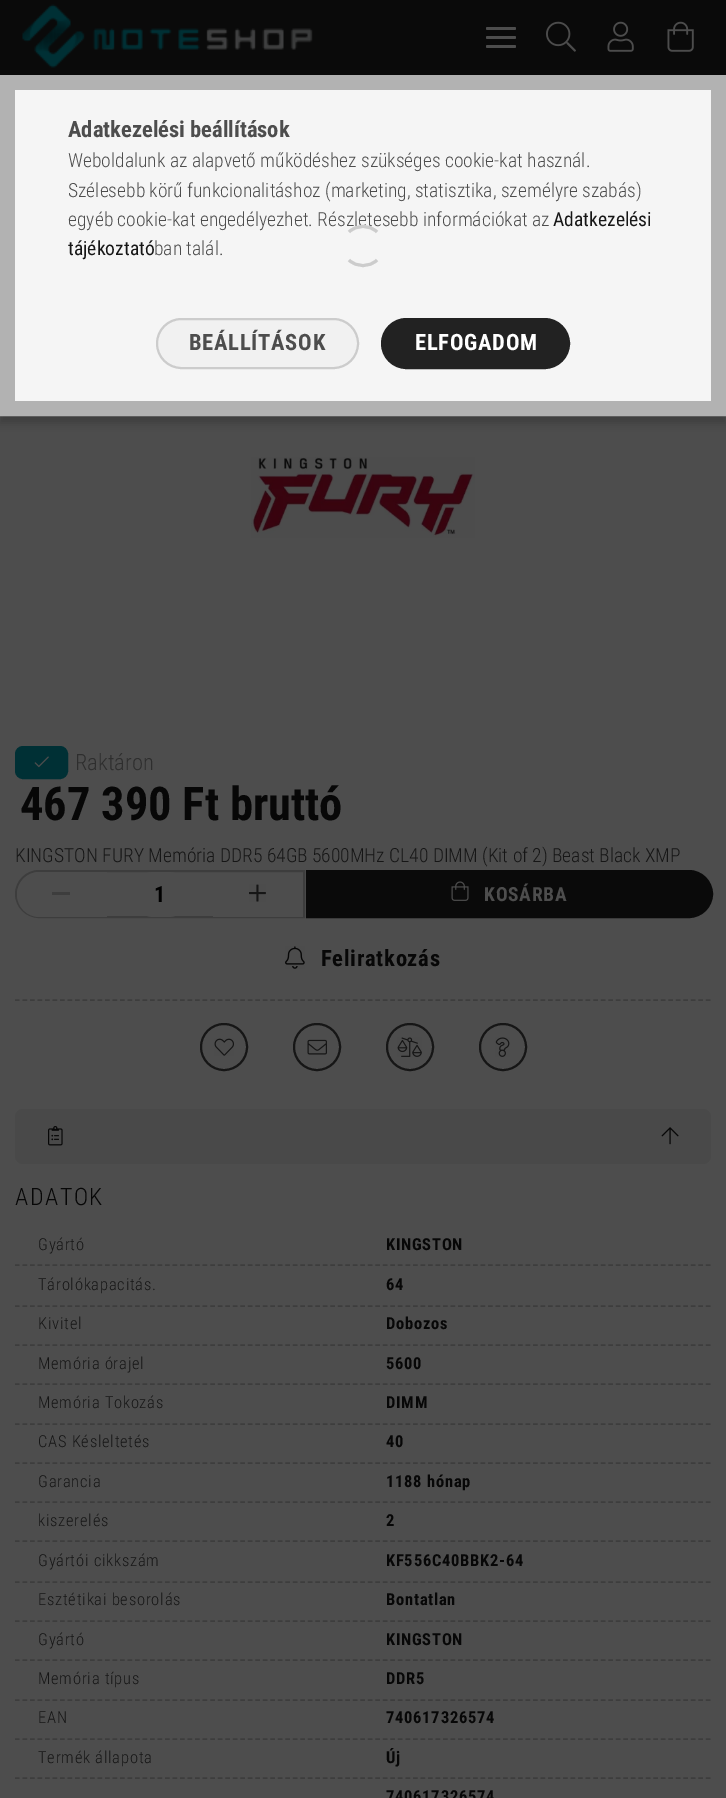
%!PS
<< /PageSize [726 1798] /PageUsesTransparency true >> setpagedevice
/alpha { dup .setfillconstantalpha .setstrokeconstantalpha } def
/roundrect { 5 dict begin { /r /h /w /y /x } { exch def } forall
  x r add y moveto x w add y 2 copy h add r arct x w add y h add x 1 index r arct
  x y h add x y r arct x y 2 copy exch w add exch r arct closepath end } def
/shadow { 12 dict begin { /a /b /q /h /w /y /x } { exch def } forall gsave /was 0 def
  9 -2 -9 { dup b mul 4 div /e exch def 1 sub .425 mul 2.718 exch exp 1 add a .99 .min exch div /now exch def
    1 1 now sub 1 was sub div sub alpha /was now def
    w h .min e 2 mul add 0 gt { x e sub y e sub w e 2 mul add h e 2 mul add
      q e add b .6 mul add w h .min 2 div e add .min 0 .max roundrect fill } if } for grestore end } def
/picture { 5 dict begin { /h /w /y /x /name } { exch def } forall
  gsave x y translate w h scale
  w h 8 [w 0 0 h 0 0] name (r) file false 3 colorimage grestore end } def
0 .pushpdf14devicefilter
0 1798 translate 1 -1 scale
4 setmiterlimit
0.302 setgray
0 0 726 1798 rectfill
0.039 setgray
0 0 726 75 rectfill
0 setgray
0 83 726 340 0 4 0.2 shadow
0.698 setgray
15 setlinewidth
7.5 82.5 711 326 rectstroke
0.961 setgray
15 90 696 311 rectfill
/RobotoCondensed-Bold [22.5 0 0 -22.5 0 0] selectfont
0.302 setgray
68 137 moveto (Adatkezelési beállítások) show
/RobotoCondensed-Light [19.5 0 0 -19.5 0 0] selectfont
68 167 moveto (Weboldalunk az alapvető működéshez szükséges cookie-kat használ.) show
68 197 moveto (Szélesebb körű funkcionalitáshoz \(marketing, statisztika, személyre szabás\)) show
68 226 moveto (egyéb cookie-kat engedélyezhet. Részletesebb információkat az) show
/RobotoCondensed-Regular [19.5 0 0 -19.5 0 0] selectfont
0.086 setgray
553 226 moveto (Adatkezelési) show
68 255 moveto (tájékoztató) show
/RobotoCondensed-Light [19.5 0 0 -19.5 0 0] selectfont
0.302 setgray
154 255 moveto (ban talál.) show
0.945 setgray
157 319 201 49 24.5 roundrect gsave fill grestore
0.8 setgray
2 setlinewidth
stroke
/RobotoCondensed-Bold [22.5 0 0 -22.5 0 0] selectfont
0.302 setgray
189 350 moveto 0.75 0 (BEÁLLÍTÁSOK) ashow
0.133 setgray
382 319 187 49 24.5 roundrect gsave fill grestore
stroke
1 setgray
415 350 moveto 0.75 0 (ELFOGADOM) ashow
0.8 setgray
3 setlinewidth
newpath 349 232 moveto 356.5 224.5 369.5 224.5 377 232 curveto 377 260 moveto 369.5 267.5 356.5 267.5 349 260 curveto stroke
(img1.rgb) 22 4 291 64 picture
0.302 setgray
486 27 30 3 1.5 roundrect fill
486 36 30 3 1.5 roundrect fill
486 45 30 3 1.5 roundrect fill
(img2.rgb) 546 21 30 31 picture
(img3.rgb) 607 21 27 31 picture
(img4.rgb) 667 21 27 31 picture
(img5.rgb) 251 457 224 81 picture
0 0.188 0.208 setrgbcolor
16 747 51 31 7 roundrect gsave fill grestore
2 setlinewidth
stroke
(img6.rgb) 34 756 15 12 picture
/RobotoCondensed-Light [22.5 0 0 -22.5 0 0] selectfont
0.18 setgray
75 770 moveto (Raktáron) show
/RobotoCondensed-Bold [46.5 0 0 -46.5 0 0] selectfont
0.027 setgray
20 820 moveto (467 390 Ft bruttó) show
/RobotoCondensed-Light [19.5 0 0 -19.5 0 0] selectfont
0.086 setgray
15 862 moveto (KINGSTON FURY Memória DDR5 64GB 5600MHz CL40 DIMM \(Kit of 2\) Beast Black XMP) show
0.239 setgray
newpath 39 871 moveto 304 871 lineto 304 917 lineto 39 917 lineto 26.5 917 16 906.5 16 894 curveto 16 881.5 26.5 871 39 871 curveto closepath stroke
0.302 setgray
newpath 39.5 872 moveto 107 872 lineto 107 917 lineto 39.5 917 lineto 27 917 17 907 17 894.5 curveto 17 882 27 872 39.5 872 curveto closepath fill
0.239 setgray
52 892 18 3 rectfill
0.302 setgray
131 872 60 45 22.5 roundrect fill
/RobotoCondensed-Bold [22.5 0 0 -22.5 0 0] selectfont
0 setgray
154 902 moveto (1) show
0.302 setgray
213 916 90 1 rectfill
(img7.rgb) 249 884 17 18 picture
0.039 setgray
newpath 307 871 moveto 689 871 lineto 701.5 871 712 881.5 712 894 curveto 712 906.5 701.5 917 689 917 curveto 307 917 lineto closepath gsave fill grestore
stroke
(img8.rgb) 451 881 18 20 picture
/RobotoCondensed-Bold [19.5 0 0 -19.5 0 0] selectfont
0.302 setgray
484 901 moveto 0.75 0 (KOSÁRBA) ashow
(img9.rgb) 285 946 20 23 picture
/RobotoCondensed-Bold [22.5 0 0 -22.5 0 0] selectfont
0.027 setgray
321 966 moveto 0.75 0 (Feliratkozás) ashow
0.239 setgray
1.5 setlinewidth
[4.5 3.01] 0 setdash
newpath 15 1000 moveto 711 1000 lineto stroke
0.086 setgray
2 setlinewidth
[] 0 setdash
newpath 224 1047 23 0 360 arc closepath stroke
(img10.rgb) 214 1038 20 18 picture
newpath 317 1047 23 0 360 arc closepath stroke
(img11.rgb) 307 1039 20 16 picture
newpath 410 1047 23 0 360 arc closepath stroke
(img12.rgb) 397 1037 25 20 picture
newpath 503 1047 23 0 360 arc closepath stroke
(img13.rgb) 495 1037 15 20 picture
0.286 setgray
15 1109 696 55 8 roundrect fill
(img14.rgb) 48 1126 15 20 picture
(img15.rgb) 661 1127 18 18 picture
/RobotoCondensed-Light [24 0 0 -24 0 0] selectfont
0.027 setgray
15 1205 moveto 1.5 0 (ADATOK) ashow
/RobotoCondensed-Light [16.5 0 0 -16.5 0 0] selectfont
0.086 setgray
38 1250 moveto 0.75 0 (Gyártó) ashow
/RobotoCondensed-Bold [16.5 0 0 -16.5 0 0] selectfont
0.027 setgray
386 1250 moveto 0.75 0 (KINGSTON) ashow
0.239 setgray
1.5 setlinewidth
[4.5 3.01] 0 setdash
newpath 15 1265 moveto 711 1265 lineto stroke
/RobotoCondensed-Light [16.5 0 0 -16.5 0 0] selectfont
0.086 setgray
38 1290 moveto 0.75 0 (Tárolókapacitás.) ashow
/RobotoCondensed-Bold [16.5 0 0 -16.5 0 0] selectfont
0.027 setgray
386 1290 moveto 0.75 0 (64) ashow
0.239 setgray
newpath 15 1306 moveto 711 1306 lineto stroke
/RobotoCondensed-Light [16.5 0 0 -16.5 0 0] selectfont
0.086 setgray
38 1329 moveto 0.75 0 (Kivitel) ashow
/RobotoCondensed-Bold [16.5 0 0 -16.5 0 0] selectfont
0.027 setgray
386 1329 moveto 0.75 0 (Dobozos) ashow
0.239 setgray
newpath 15 1345 moveto 711 1345 lineto stroke
/RobotoCondensed-Light [16.5 0 0 -16.5 0 0] selectfont
0.086 setgray
38 1369 moveto 0.75 0 (Memória órajel) ashow
/RobotoCondensed-Bold [16.5 0 0 -16.5 0 0] selectfont
0.027 setgray
386 1369 moveto 0.75 0 (5600) ashow
0.239 setgray
newpath 15 1384 moveto 711 1384 lineto stroke
/RobotoCondensed-Light [16.5 0 0 -16.5 0 0] selectfont
0.086 setgray
38 1408 moveto 0.75 0 (Memória Tokozás) ashow
/RobotoCondensed-Bold [16.5 0 0 -16.5 0 0] selectfont
0.027 setgray
386 1408 moveto 0.75 0 (DIMM) ashow
0.239 setgray
newpath 15 1424 moveto 711 1424 lineto stroke
/RobotoCondensed-Light [16.5 0 0 -16.5 0 0] selectfont
0.086 setgray
38 1447 moveto 0.75 0 (CAS Késleltetés) ashow
/RobotoCondensed-Bold [16.5 0 0 -16.5 0 0] selectfont
0.027 setgray
386 1447 moveto 0.75 0 (40) ashow
0.239 setgray
newpath 15 1463 moveto 711 1463 lineto stroke
/RobotoCondensed-Light [16.5 0 0 -16.5 0 0] selectfont
0.086 setgray
38 1487 moveto 0.75 0 (Garancia) ashow
/RobotoCondensed-Bold [16.5 0 0 -16.5 0 0] selectfont
0.027 setgray
386 1487 moveto 0.75 0 (1188 hónap) ashow
0.239 setgray
newpath 15 1502 moveto 711 1502 lineto stroke
/RobotoCondensed-Light [16.5 0 0 -16.5 0 0] selectfont
0.086 setgray
38 1526 moveto 0.75 0 (kiszerelés) ashow
/RobotoCondensed-Bold [16.5 0 0 -16.5 0 0] selectfont
0.027 setgray
386 1526 moveto 0.75 0 (2) ashow
0.239 setgray
newpath 15 1541 moveto 711 1541 lineto stroke
/RobotoCondensed-Light [16.5 0 0 -16.5 0 0] selectfont
0.086 setgray
38 1566 moveto 0.75 0 (Gyártói cikkszám) ashow
/RobotoCondensed-Bold [16.5 0 0 -16.5 0 0] selectfont
0.027 setgray
386 1566 moveto 0.75 0 (KF556C40BBK2-64) ashow
0.239 setgray
newpath 15 1582 moveto 711 1582 lineto stroke
/RobotoCondensed-Light [16.5 0 0 -16.5 0 0] selectfont
0.086 setgray
38 1605 moveto 0.75 0 (Esztétikai besorolás) ashow
/RobotoCondensed-Bold [16.5 0 0 -16.5 0 0] selectfont
0.027 setgray
386 1605 moveto 0.75 0 (Bontatlan) ashow
0.239 setgray
newpath 15 1621 moveto 711 1621 lineto stroke
/RobotoCondensed-Light [16.5 0 0 -16.5 0 0] selectfont
0.086 setgray
38 1645 moveto 0.75 0 (Gyártó) ashow
/RobotoCondensed-Bold [16.5 0 0 -16.5 0 0] selectfont
0.027 setgray
386 1645 moveto 0.75 0 (KINGSTON) ashow
0.239 setgray
newpath 15 1660 moveto 711 1660 lineto stroke
/RobotoCondensed-Light [16.5 0 0 -16.5 0 0] selectfont
0.086 setgray
38 1684 moveto 0.75 0 (Memória típus) ashow
/RobotoCondensed-Bold [16.5 0 0 -16.5 0 0] selectfont
0.027 setgray
386 1684 moveto 0.75 0 (DDR5) ashow
0.239 setgray
newpath 15 1700 moveto 711 1700 lineto stroke
/RobotoCondensed-Light [16.5 0 0 -16.5 0 0] selectfont
0.086 setgray
38 1723 moveto 0.75 0 (EAN) ashow
/RobotoCondensed-Bold [16.5 0 0 -16.5 0 0] selectfont
0.027 setgray
386 1723 moveto 0.75 0 (740617326574) ashow
0.239 setgray
newpath 15 1739 moveto 711 1739 lineto stroke
/RobotoCondensed-Light [16.5 0 0 -16.5 0 0] selectfont
0.086 setgray
38 1763 moveto 0.75 0 (Termék állapota) ashow
/RobotoCondensed-Bold [16.5 0 0 -16.5 0 0] selectfont
0.027 setgray
386 1763 moveto 0.75 0 (Új) ashow
0.239 setgray
newpath 15 1778 moveto 711 1778 lineto stroke
0.027 setgray
386 1802 moveto 0.75 0 (740617326574) ashow
.poppdf14devicefilter showpage
